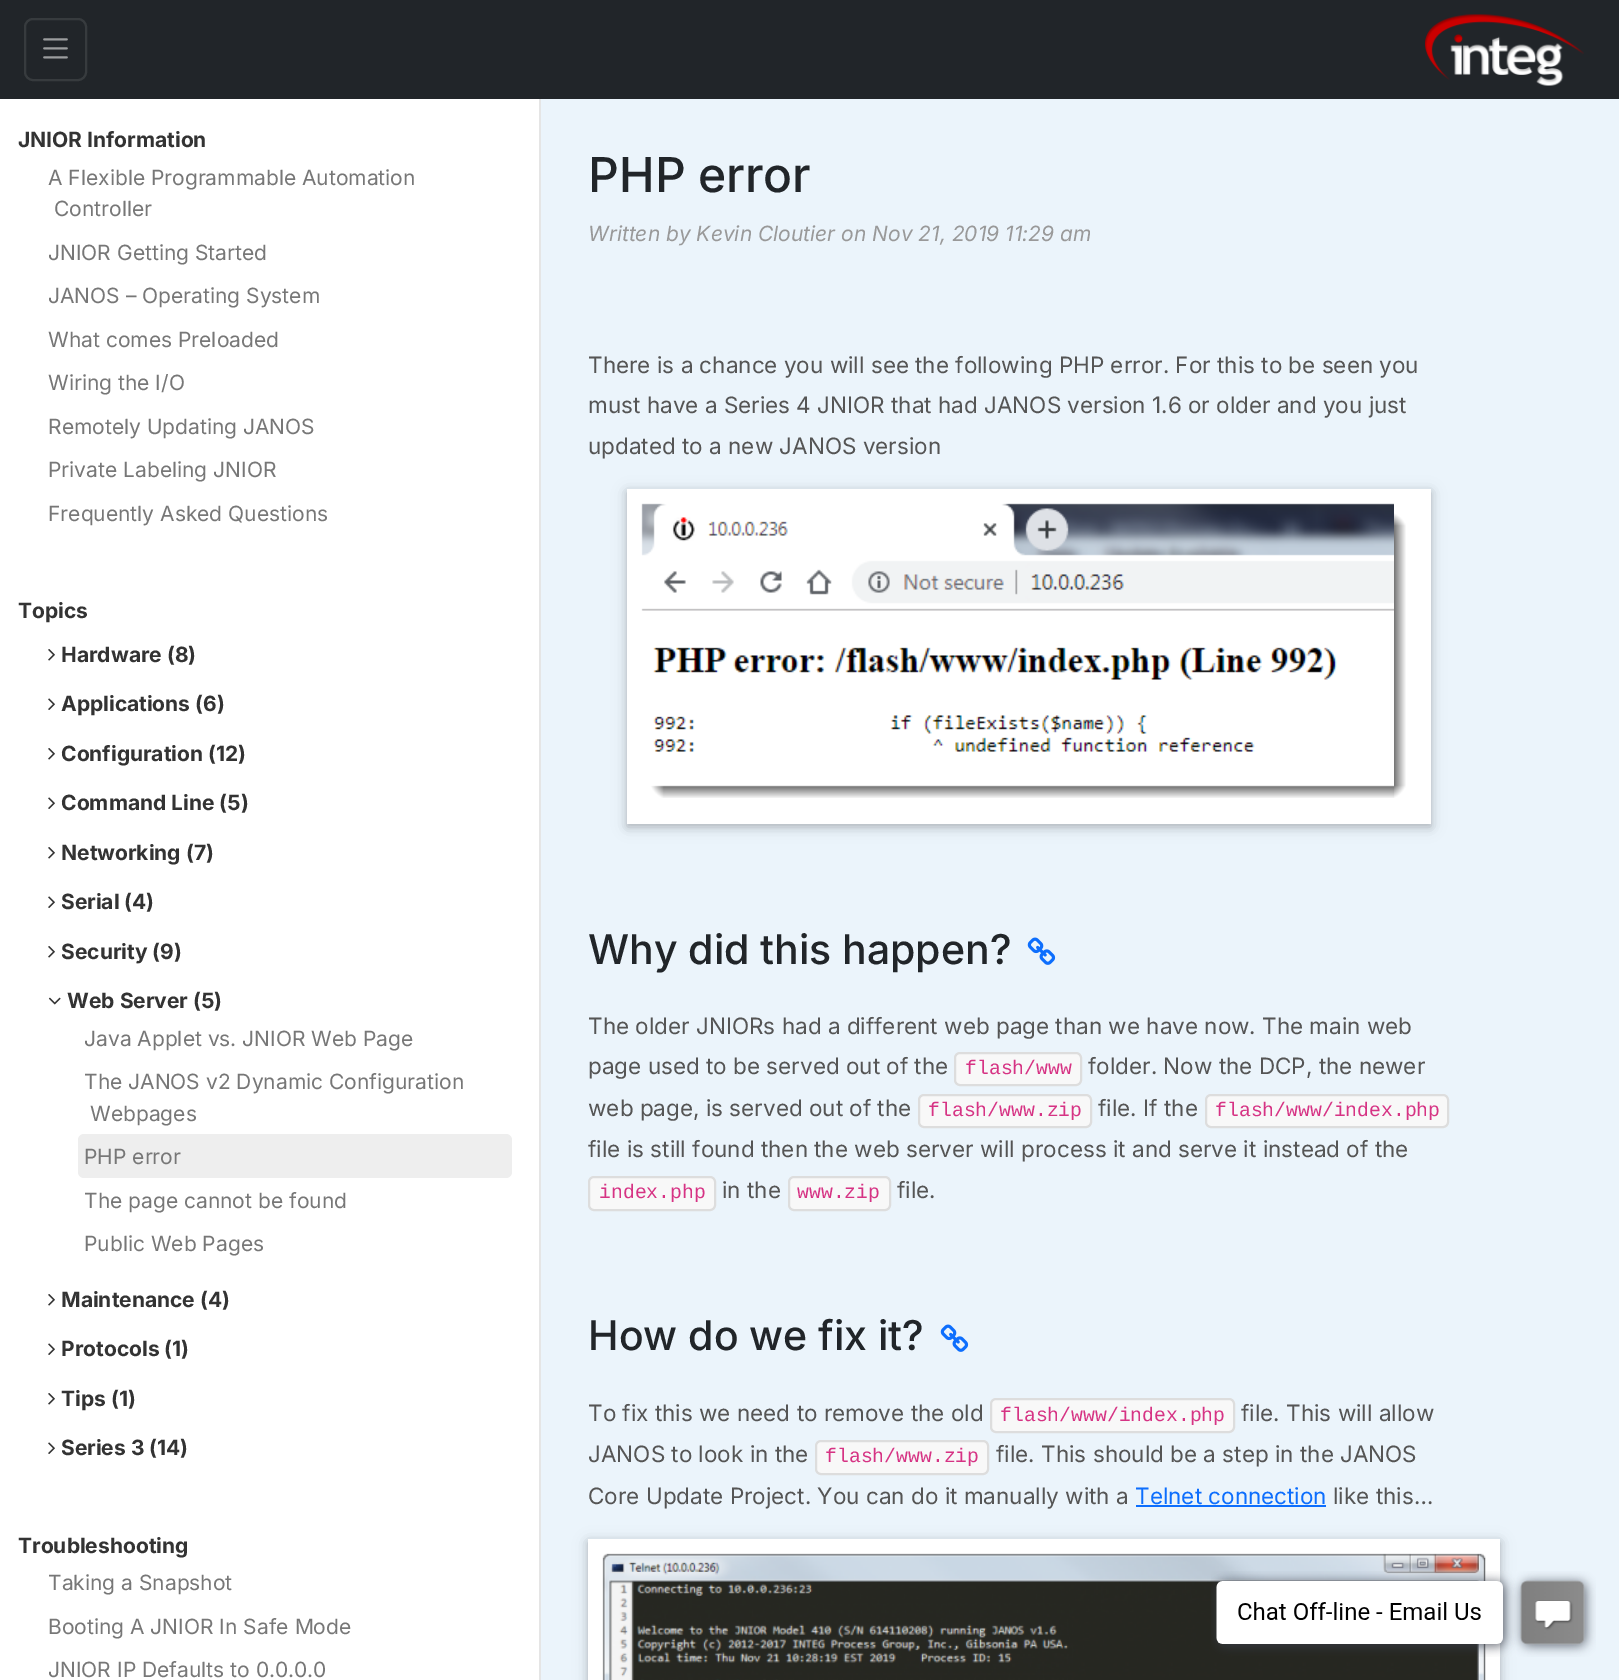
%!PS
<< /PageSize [1619 1680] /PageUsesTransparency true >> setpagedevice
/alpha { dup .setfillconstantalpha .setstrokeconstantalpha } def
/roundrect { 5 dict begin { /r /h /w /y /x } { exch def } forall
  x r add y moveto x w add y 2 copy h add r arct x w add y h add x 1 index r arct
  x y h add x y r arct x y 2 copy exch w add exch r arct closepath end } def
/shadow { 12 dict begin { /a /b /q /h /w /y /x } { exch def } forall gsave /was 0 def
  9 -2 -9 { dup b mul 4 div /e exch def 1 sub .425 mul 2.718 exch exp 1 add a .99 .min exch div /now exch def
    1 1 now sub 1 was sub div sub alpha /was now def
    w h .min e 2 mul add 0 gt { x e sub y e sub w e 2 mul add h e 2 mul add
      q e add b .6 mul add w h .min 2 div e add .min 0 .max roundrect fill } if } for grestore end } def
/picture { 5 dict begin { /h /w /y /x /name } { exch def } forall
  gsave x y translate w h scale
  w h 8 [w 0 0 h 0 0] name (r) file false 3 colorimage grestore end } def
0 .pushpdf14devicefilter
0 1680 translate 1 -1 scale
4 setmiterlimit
0.922 0.957 0.984 setrgbcolor
0 0 1619 1680 rectfill
0.129 0.145 0.161 setrgbcolor
0 0 1619 99 rectfill
0.216 0.231 0.243 setrgbcolor
2 setlinewidth
25 19 61 61 8 roundrect stroke
(img1.rgb) 43 38 25 21 picture
(img2.rgb) 1425 14 159 72 picture
1 setgray
0 99 539 1581 rectfill
0.898 setgray
539 99 2 1581 rectfill
/Inter-Bold [21 0 0 -21 0 0] selectfont
0.2 setgray
18 147 moveto (JNIOR Information) show
/Inter-Regular [21 0 0 -21 0 0] selectfont
0.467 setgray
48 185 moveto (A Flexible Programmable Automation) show
54 216 moveto (Controller) show
48 260 moveto (JNIOR Getting Started) show
48 303 moveto (JANOS – Operating System) show
48 347 moveto (What comes Preloaded) show
48 390 moveto (Wiring the I/O) show
48 434 moveto (Remotely Updating JANOS) show
48 477 moveto (Private Labeling JNIOR) show
48 521 moveto (Frequently Asked Questions) show
/Inter-Bold [21 0 0 -21 0 0] selectfont
0.2 setgray
18 618 moveto (Topics) show
(img3.rgb) 48 649 7 12 picture
61 662 moveto (Hardware \(8\)) show
(img4.rgb) 48 698 7 12 picture
61 711 moveto (Applications \(6\)) show
(img3.rgb) 48 748 7 12 picture
61 761 moveto (Configuration \(12\)) show
(img4.rgb) 48 797 7 12 picture
61 810 moveto (Command Line \(5\)) show
(img3.rgb) 48 847 7 12 picture
61 860 moveto (Networking \(7\)) show
(img4.rgb) 48 896 7 12 picture
61 909 moveto (Serial \(4\)) show
(img3.rgb) 48 946 7 12 picture
61 959 moveto (Security \(9\)) show
(img5.rgb) 48 997 13 8 picture
67 1008 moveto (Web Server \(5\)) show
/Inter-Regular [21 0 0 -21 0 0] selectfont
0.467 setgray
84 1046 moveto (Java Applet vs. JNIOR Web Page) show
84 1089 moveto (The JANOS v2 Dynamic Configuration) show
90 1121 moveto (Webpages) show
0.933 setgray
78 1134 434 44 6 roundrect fill
0.467 setgray
84 1164 moveto (PHP error) show
84 1208 moveto (The page cannot be found) show
84 1251 moveto (Public Web Pages) show
(img3.rgb) 48 1294 7 12 picture
/Inter-Bold [21 0 0 -21 0 0] selectfont
0.2 setgray
61 1307 moveto (Maintenance \(4\)) show
(img4.rgb) 48 1343 7 12 picture
61 1356 moveto (Protocols \(1\)) show
(img3.rgb) 48 1393 7 12 picture
61 1406 moveto (Tips \(1\)) show
(img4.rgb) 48 1442 7 12 picture
61 1455 moveto (Series 3 \(14\)) show
18 1553 moveto (Troubleshooting) show
/Inter-Regular [21 0 0 -21 0 0] selectfont
0.467 setgray
48 1590 moveto (Taking a Snapshot) show
48 1634 moveto (Booting A JNIOR In Safe Mode) show
48 1677 moveto (JNIOR IP Defaults to 0.0.0.0) show
/Inter-Medium [48 0 0 -48 0 0] selectfont
0.129 0.145 0.161 setrgbcolor
588 192 moveto (PHP error) show
/Inter-Italic [21 0 0 -21 0 0] selectfont
0.6 setgray
588 241 moveto (Written by Kevin Cloutier on Nov 21, 2019 11:29 am) show
/Inter-Regular [22.5 0 0 -22.5 0 0] selectfont
0.333 setgray
588 373 moveto (There is a chance you will see the following PHP error. For this to be seen you) show
588 413 moveto (must have a Series 4 JNIOR that had JANOS version 1.6 or older and you just) show
588 454 moveto (updated to a new JANOS version) show
0 setgray
627 492 804 335 0 7.5 0.12 shadow
627 492 804 335 0 4 0.16 shadow
1 setgray
627 489 804 335 rectfill
(img6.rgb) 641 503 765 295 picture
/Inter-Medium [41 0 0 -41 0 0] selectfont
0.129 0.145 0.161 setrgbcolor
588 964 moveto (Why did this happen?) show
(img7.rgb) 1027 937 29 28 picture
/Inter-Regular [22.5 0 0 -22.5 0 0] selectfont
0.333 setgray
588 1034 moveto (The older JNIORs had a different web page than we have now. The main web) show
588 1074 moveto (page used to be served out of the) show
0.973 setgray
955 1053 126 32 5 roundrect gsave fill grestore
0.867 setgray
stroke
/LiberationMono-Regular [19.75 0 0 -19.75 0 0] selectfont
0.839 0.2 0.518 setrgbcolor
965 1074 moveto (flash/www) show
/Inter-Regular [22.5 0 0 -22.5 0 0] selectfont
0.333 setgray
1088 1074 moveto (folder. Now the DCP, the newer) show
588 1116 moveto (web page, is served out of the) show
0.973 setgray
919 1095 172 32 5 roundrect gsave fill grestore
0.867 setgray
stroke
/LiberationMono-Regular [19.75 0 0 -19.75 0 0] selectfont
0.839 0.2 0.518 setrgbcolor
928 1116 moveto (flash/www.zip) show
/Inter-Regular [22.5 0 0 -22.5 0 0] selectfont
0.333 setgray
1098 1116 moveto (file. If the) show
0.973 setgray
1206 1095 242 32 5 roundrect gsave fill grestore
0.867 setgray
stroke
/LiberationMono-Regular [19.75 0 0 -19.75 0 0] selectfont
0.839 0.2 0.518 setrgbcolor
1215 1116 moveto (flash/www/index.php) show
/Inter-Regular [22.5 0 0 -22.5 0 0] selectfont
0.333 setgray
588 1157 moveto (file is still found then the web server will process it and serve it instead of the) show
0.973 setgray
589 1177 126 33 5 roundrect gsave fill grestore
0.867 setgray
stroke
/LiberationMono-Regular [19.75 0 0 -19.75 0 0] selectfont
0.839 0.2 0.518 setrgbcolor
599 1198 moveto (index.php) show
/Inter-Regular [22.5 0 0 -22.5 0 0] selectfont
0.333 setgray
722 1198 moveto (in the) show
0.973 setgray
789 1177 101 33 5 roundrect gsave fill grestore
0.867 setgray
stroke
/LiberationMono-Regular [19.75 0 0 -19.75 0 0] selectfont
0.839 0.2 0.518 setrgbcolor
797 1198 moveto (www.zip) show
/Inter-Regular [22.5 0 0 -22.5 0 0] selectfont
0.333 setgray
897 1198 moveto (file.) show
/Inter-Medium [41 0 0 -41 0 0] selectfont
0.129 0.145 0.161 setrgbcolor
588 1350 moveto (How do we fix it?) show
(img7.rgb) 940 1324 29 28 picture
/Inter-Regular [22.5 0 0 -22.5 0 0] selectfont
0.333 setgray
588 1421 moveto (To fix this we need to remove the old) show
0.973 setgray
991 1399 243 33 5 roundrect gsave fill grestore
0.867 setgray
stroke
/LiberationMono-Regular [19.75 0 0 -19.75 0 0] selectfont
0.839 0.2 0.518 setrgbcolor
1000 1421 moveto (flash/www/index.php) show
/Inter-Regular [22.5 0 0 -22.5 0 0] selectfont
0.333 setgray
1241 1421 moveto (file. This will allow) show
588 1462 moveto (JANOS to look in the) show
0.973 setgray
816 1441 172 33 5 roundrect gsave fill grestore
0.867 setgray
stroke
/LiberationMono-Regular [19.75 0 0 -19.75 0 0] selectfont
0.839 0.2 0.518 setrgbcolor
825 1462 moveto (flash/www.zip) show
/Inter-Regular [22.5 0 0 -22.5 0 0] selectfont
0.333 setgray
996 1462 moveto (file. This should be a step in the JANOS) show
588 1504 moveto (Core Update Project. You can do it manually with a) show
0.051 0.431 0.992 setrgbcolor
1135 1504 moveto (Telnet connection) show
1136 1505 190 2 rectfill
0.333 setgray
1333 1504 moveto (like this…) show
0 setgray
588 1542 912 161 0 7.5 0.12 shadow
588 1542 912 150 0 4 0.16 shadow
1 setgray
588 1539 912 141 rectfill
(img8.rgb) 602 1553 884 127 picture
(img9.rgb) 1211 1571 385 86 picture
.poppdf14devicefilter showpage
